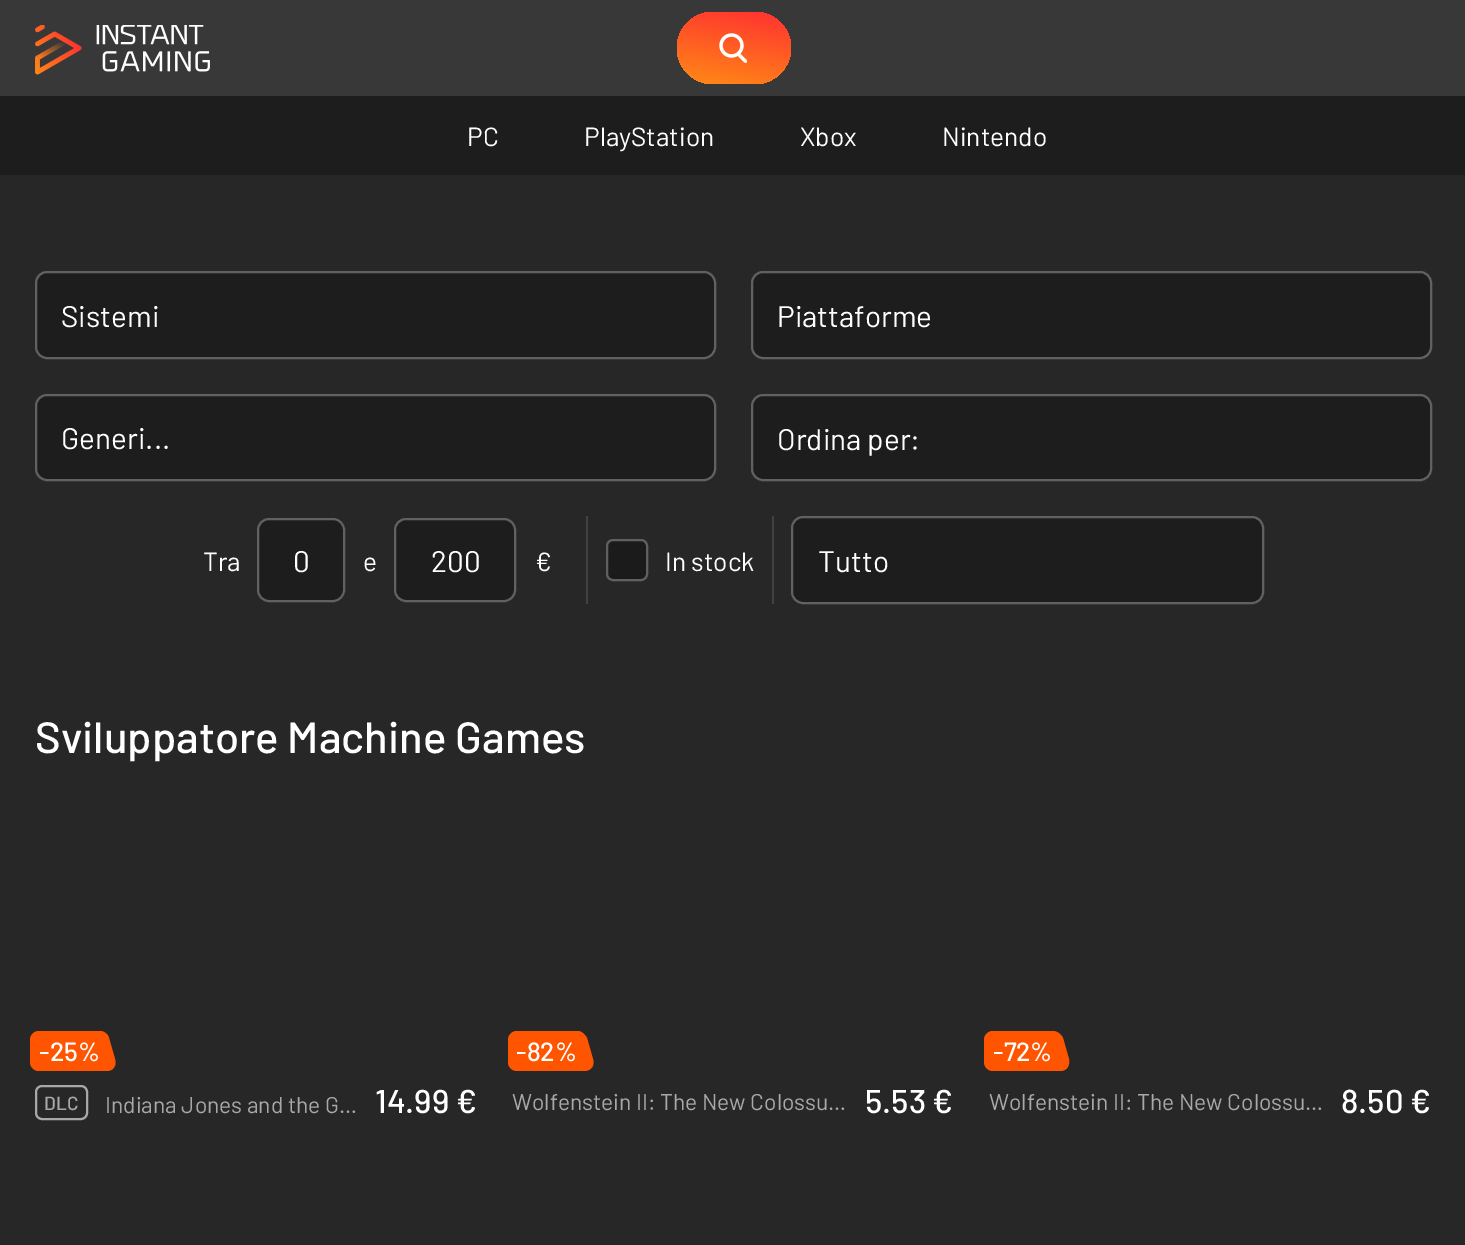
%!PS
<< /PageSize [1465 1245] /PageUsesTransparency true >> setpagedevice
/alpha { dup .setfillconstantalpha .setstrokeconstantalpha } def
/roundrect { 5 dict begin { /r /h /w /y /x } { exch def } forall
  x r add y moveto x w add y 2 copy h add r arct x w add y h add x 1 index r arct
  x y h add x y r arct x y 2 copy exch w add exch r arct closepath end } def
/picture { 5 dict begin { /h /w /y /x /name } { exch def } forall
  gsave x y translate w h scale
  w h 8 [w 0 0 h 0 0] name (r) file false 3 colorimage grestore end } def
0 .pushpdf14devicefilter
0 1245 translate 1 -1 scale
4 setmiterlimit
0.153 setgray
0 0 1465 1245 rectfill
0.22 setgray
0 0 1465 96 rectfill
(img1.rgb) 35 25 175 50 picture
gsave 677 12 114 72 36 roundrect clip newpath
<< /ShadingType 2 /ColorSpace /DeviceRGB /Coords [726 93 742 3.6] /Extend [true true] /Function << /FunctionType 2 /Domain [0 1] /C0 [1 0.541 0.082] /C1 [1 0.192 0.192] /N 1 >> >> shfill grestore
(img2.rgb) 719 33 28 30 picture
0.114 setgray
0 96 1465 79 rectfill
/Barlow-Regular [26.25 0 0 -26.25 0 0] selectfont
1 setgray
467 146 moveto (PC) show
584 146 moveto (PlayStation) show
800 146 moveto (Xbox) show
942 146 moveto (Nintendo) show
0.114 setgray
35 271 681 88 12 roundrect fill
0.3 alpha
1 setgray
2 setlinewidth
36 272 679 86 11 roundrect stroke
/Barlow-Regular [29.75 0 0 -29.75 0 0] selectfont
1 alpha
61 327 moveto (Sistemi) show
0.114 setgray
751 271 681 88 12 roundrect fill
0.3 alpha
1 setgray
752 272 679 86 11 roundrect stroke
1 alpha
777 327 moveto (Piattaforme) show
0.114 setgray
35 394 681 87 12 roundrect fill
0.3 alpha
1 setgray
36 395 679 85 11 roundrect stroke
1 alpha
61 449 moveto (Generi...) show
0.114 setgray
751 394 681 87 12 roundrect fill
0.3 alpha
1 setgray
752 395 679 85 11 roundrect stroke
1 alpha
777 450 moveto (Ordina per:) show
/Barlow-Regular [26.25 0 0 -26.25 0 0] selectfont
203 571 moveto (Tra) show
0.114 setgray
257 518 88 84 12 roundrect fill
0.3 alpha
1 setgray
258 519 86 82 11 roundrect stroke
/Barlow-Regular [29.75 0 0 -29.75 0 0] selectfont
1 alpha
293 572 moveto (0) show
/Barlow-Regular [26.25 0 0 -26.25 0 0] selectfont
363 571 moveto (e) show
0.114 setgray
394 518 122 84 12 roundrect fill
0.3 alpha
1 setgray
395 519 120 82 11 roundrect stroke
/Barlow-Regular [29.75 0 0 -29.75 0 0] selectfont
1 alpha
431 572 moveto (200) show
/Barlow-Regular [26.25 0 0 -26.25 0 0] selectfont
535 571 moveto (€) show
0.255 setgray
newpath 586 516 moveto 588 516 lineto 588 518 lineto closepath fill
0.2 alpha
0.667 setgray
newpath 586 604 moveto 586 516 lineto 588 518 lineto 588 604 lineto closepath fill
1 alpha
0.106 setgray
606 539 42 42 7 roundrect fill
0.3 alpha
1 setgray
607 540 40 40 6 roundrect stroke
1 alpha
665 571 moveto (In stock) show
0.255 setgray
newpath 772 516 moveto 773.5 516 lineto 773.5 518 lineto closepath fill
0.2 alpha
0.667 setgray
newpath 772 604 moveto 772 516 lineto 774 518 lineto 774 604 lineto closepath fill
1 alpha
0.114 setgray
791 516 473 88 12 roundrect fill
0.3 alpha
1 setgray
792 517 471 86 11 roundrect stroke
/Barlow-Regular [29.75 0 0 -29.75 0 0] selectfont
1 alpha
818 572 moveto (Tutto) show
/Barlow-Medium [43.75 0 0 -43.75 0 0] selectfont
35 753 moveto (Sviluppatore Machine Games) show
1 0.329 0 setrgbcolor
newpath 39 1031 moveto 98 1031 lineto 103 1031 107 1035 107 1040 curveto 107 1071 lineto 39 1071 lineto 34 1071 30 1067 30 1062 curveto 30 1040 lineto 30 1035 34 1031 39 1031 curveto closepath fill
newpath 43 1031 moveto 100 1031 lineto 104 1031 108 1034 109 1038 curveto 115 1059 lineto 117 1066 113 1071 107 1071 curveto 50 1071 lineto 46 1071 42 1068 41 1064 curveto 35 1043 lineto 33 1037 36 1031 43 1031 curveto closepath fill
/Barlow-Medium [26.25 0 0 -26.25 0 0] selectfont
1 setgray
39 1061 moveto (-25%) show
0.659 setgray
36 1086 51 33 6 roundrect stroke
/Barlow-Medium [19 0 0 -19 0 0] selectfont
44 1110 moveto (DLC) show
/Barlow-Regular [22.75 0 0 -22.75 0 0] selectfont
105 1113 moveto (Indiana Jones and the G…) show
/Barlow-Medium [33 0 0 -33 0 0] selectfont
1 setgray
375 1113 moveto (14.99 €) show
1 0.329 0 setrgbcolor
newpath 517 1031 moveto 574 1031 lineto 579 1031 583 1035 583 1040 curveto 583 1071 lineto 517 1071 lineto 512 1071 508 1067 508 1062 curveto 508 1040 lineto 508 1035 512 1031 517 1031 curveto closepath fill
newpath 520 1031 moveto 578 1031 lineto 581 1031 585 1034 587 1038 curveto 593 1059 lineto 595 1066 591 1071 584 1071 curveto 527 1071 lineto 523 1071 519 1068 518 1064 curveto 512 1043 lineto 510 1037 514 1031 520 1031 curveto closepath fill
/Barlow-Medium [26.25 0 0 -26.25 0 0] selectfont
1 setgray
516 1061 moveto (-82%) show
/Barlow-Regular [22.75 0 0 -22.75 0 0] selectfont
0.659 setgray
512 1110 moveto (Wolfenstein II: The New Colossu…) show
/Barlow-Medium [33 0 0 -33 0 0] selectfont
1 setgray
865 1113 moveto (5.53 €) show
1 0.329 0 setrgbcolor
newpath 993 1031 moveto 1050 1031 lineto 1055 1031 1059 1035 1059 1040 curveto 1059 1071 lineto 993 1071 lineto 988 1071 984 1067 984 1062 curveto 984 1040 lineto 984 1035 988 1031 993 1031 curveto closepath fill
newpath 998 1031 moveto 1053 1031 lineto 1057 1031 1061 1034 1063 1038 curveto 1069 1059 lineto 1070 1066 1067 1071 1060 1071 curveto 1004 1071 lineto 1000 1071 996 1068 995 1064 curveto 989 1043 lineto 987 1037 991 1031 998 1031 curveto closepath fill
/Barlow-Medium [26.25 0 0 -26.25 0 0] selectfont
1 setgray
993 1061 moveto (-72%) show
/Barlow-Regular [22.75 0 0 -22.75 0 0] selectfont
0.659 setgray
989 1110 moveto (Wolfenstein II: The New Colossu…) show
/Barlow-Medium [33 0 0 -33 0 0] selectfont
1 setgray
1341 1113 moveto (8.50 €) show
.poppdf14devicefilter showpage
